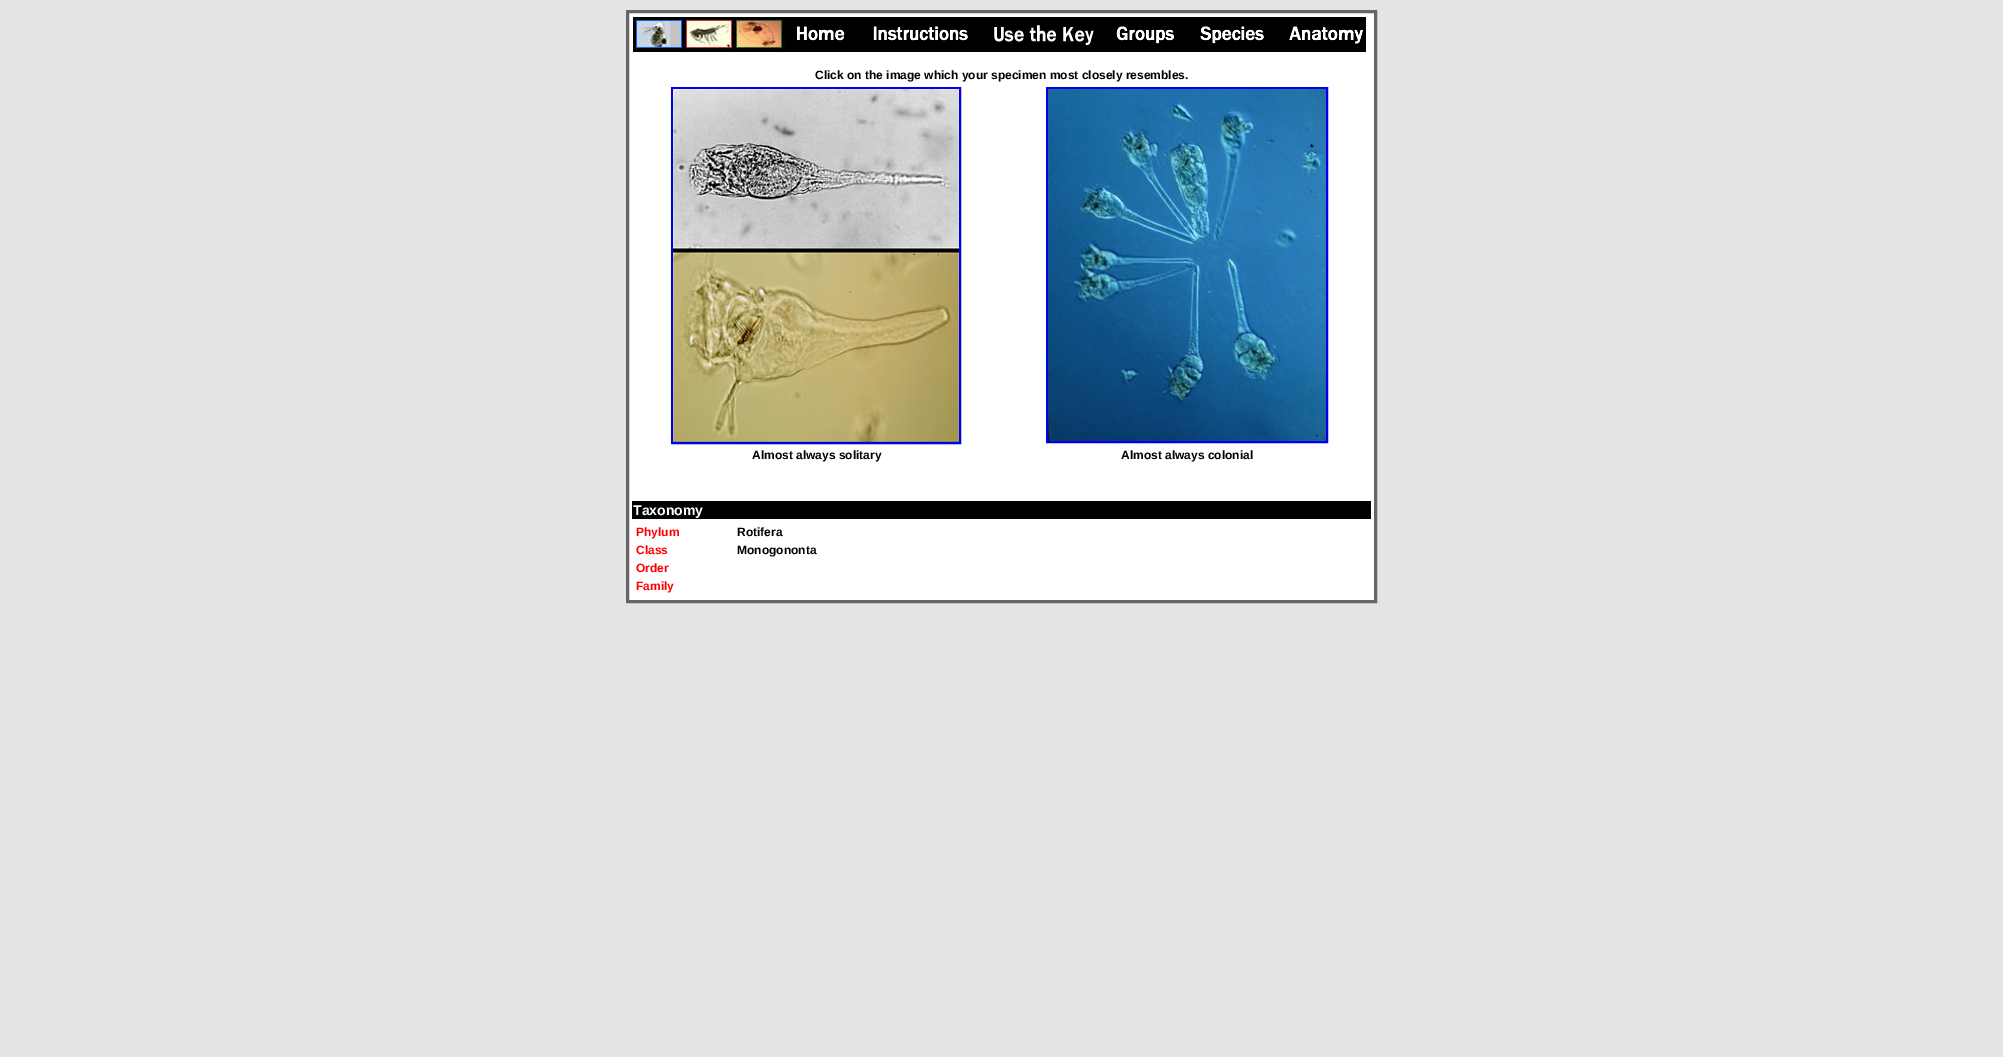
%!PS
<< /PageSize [2003 1057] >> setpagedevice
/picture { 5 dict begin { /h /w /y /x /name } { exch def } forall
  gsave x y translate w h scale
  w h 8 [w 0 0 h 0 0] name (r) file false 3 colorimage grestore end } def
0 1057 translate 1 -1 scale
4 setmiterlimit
0.894 setgray
0 0 2003 1057 rectfill
1 setgray
newpath 627.5 11.5 moveto 1375.5 11.5 lineto 1375.5 601.5 lineto 627.5 601.5 lineto closepath gsave fill grestore
0.4 setgray
3 setlinewidth
stroke
(img1.rgb) 633 17 153 35 picture
(img2.rgb) 786 17 70 35 picture
(img3.rgb) 856 17 120 35 picture
(img4.rgb) 976 17 130 35 picture
(img5.rgb) 1106 17 80 35 picture
(img6.rgb) 1186 17 85 35 picture
(img7.rgb) 1271 17 95 35 picture
/LiberationSans-Bold [12 0 0 -12 0 0] selectfont
0 setgray
815 79 moveto (Click on the image which your specimen most closely resembles.) show
0 0 0.933 setrgbcolor
2 setlinewidth
672 88 288 355 rectstroke
(img8.rgb) 673 89 286 353 picture
1047 88 280 354 rectstroke
(img9.rgb) 1048 89 278 352 picture
0 setgray
752 459 moveto (Almost always solitary) show
1121 459 moveto (Almost always colonial) show
632 501 739 18 rectfill
/LiberationSans-Bold [14 0 0 -14 0 0] selectfont
1 setgray
633 515 moveto (Taxonomy) show
/LiberationSans-Bold [12 0 0 -12 0 0] selectfont
1 0 0 setrgbcolor
636 536 moveto (Phylum) show
0 setgray
737 536 moveto (Rotifera) show
1 0 0 setrgbcolor
636 554 moveto (Class) show
0 setgray
737 554 moveto (Monogononta) show
1 0 0 setrgbcolor
636 572 moveto (Order) show
636 590 moveto (Family) show
showpage
